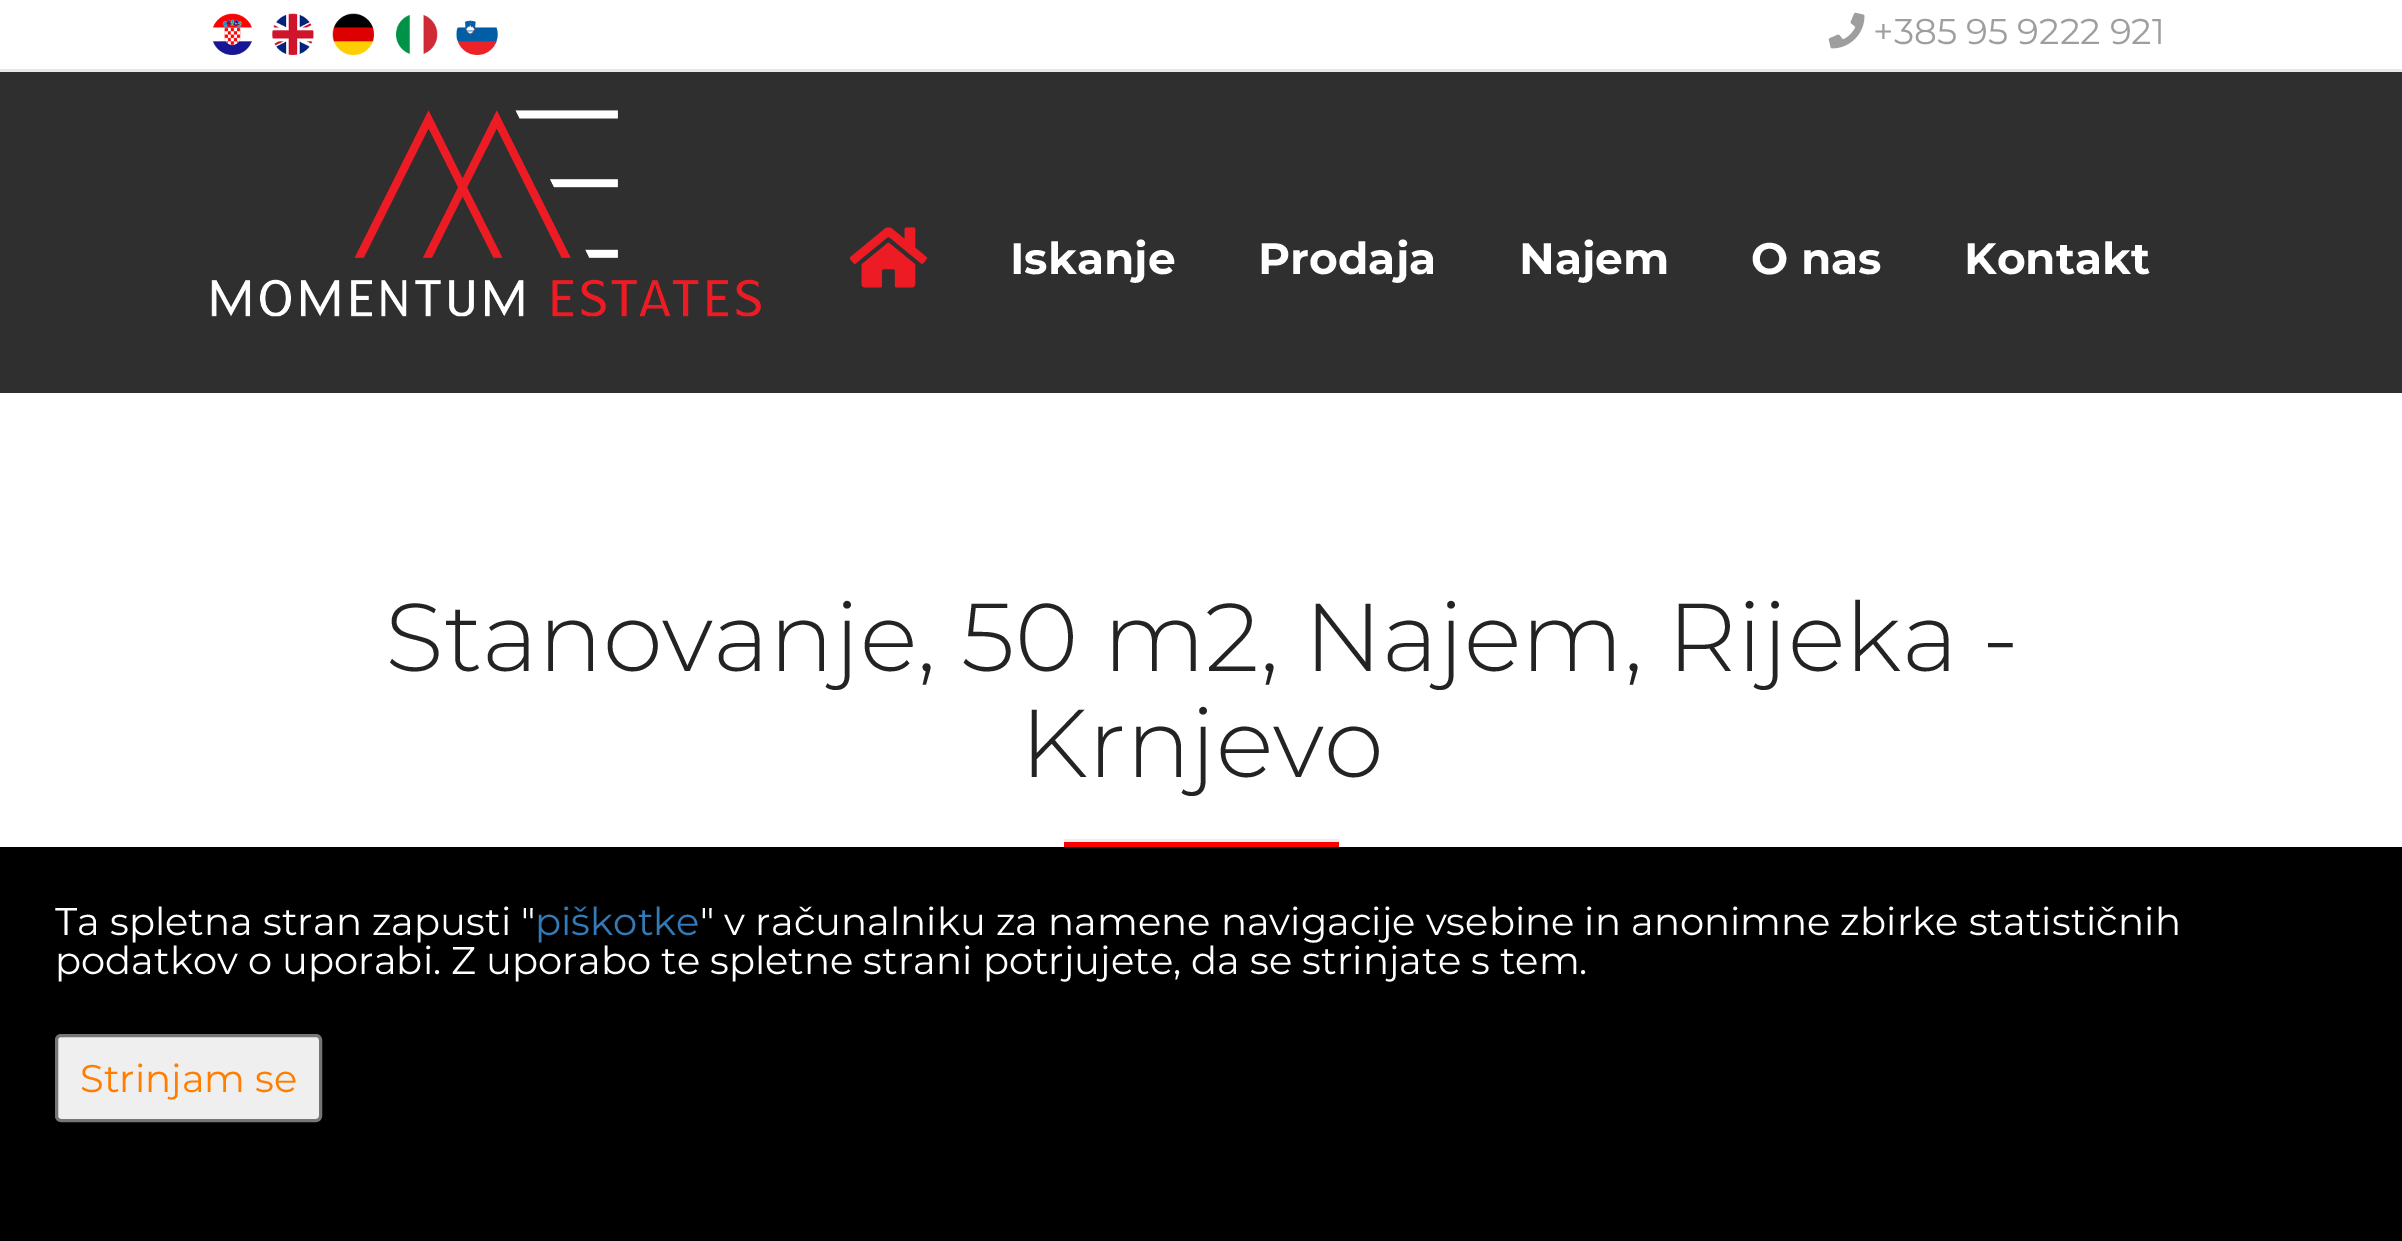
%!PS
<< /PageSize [2402 1241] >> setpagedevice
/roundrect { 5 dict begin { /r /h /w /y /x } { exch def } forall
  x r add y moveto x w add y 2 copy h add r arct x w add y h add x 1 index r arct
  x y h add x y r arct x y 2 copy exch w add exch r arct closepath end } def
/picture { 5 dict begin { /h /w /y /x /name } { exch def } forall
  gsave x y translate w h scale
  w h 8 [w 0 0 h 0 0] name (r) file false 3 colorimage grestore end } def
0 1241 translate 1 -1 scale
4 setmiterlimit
1 setgray
0 0 2402 1241 rectfill
0.906 setgray
0 69 2402 3 rectfill
(img1.rgb) 212 13 41 42 picture
(img2.rgb) 272 13 42 42 picture
(img3.rgb) 332 13 42 42 picture
(img4.rgb) 396 14 42 41 picture
(img5.rgb) 456 20 42 35 picture
(img6.rgb) 1828 12 37 37 picture
/Montserrat-Regular [35.75 0 0 -35.75 0 0] selectfont
0.62 setgray
1873 44 moveto (+385 95 9222 921) show
0.184 setgray
0 72 2402 321 rectfill
(img7.rgb) 211 110 550 207 picture
(img8.rgb) 849 227 78 61 picture
/Montserrat-Bold [44 0 0 -44 0 0] selectfont
1 setgray
1010 274 moveto (Iskanje) show
1258 274 moveto (Prodaja) show
1519 274 moveto (Najem) show
1751 274 moveto (O nas) show
1964 274 moveto (Kontakt) show
/Montserrat-Light [96.25 0 0 -96.25 0 0] selectfont
0.137 setgray
385 671 moveto (Stanovanje, 50 m2, Najem, Rijeka -) show
1020 777 moveto (Krnjevo) show
1 0 0 setrgbcolor
1064 842 275 5 rectfill
0.933 setgray
1064 839 275 3 rectfill
0 setgray
0 847 2402 394 rectfill
/Montserrat-Regular [38.5 0 0 -38.5 0 0] selectfont
1 setgray
55 935 moveto (Ta spletna stran zapusti ") show
0.2 0.478 0.718 setrgbcolor
535 935 moveto (piškotke) show
1 setgray
700 935 moveto (" v računalniku za namene navigacije vsebine in anonimne zbirke statističnih) show
55 974 moveto (podatkov o uporabi. Z uporabo te spletne strani potrjujete, da se strinjate s tem.) show
0.937 setgray
56.5 1035.5 264 85 4.5 roundrect gsave fill grestore
0.463 setgray
3 setlinewidth
stroke
1 0.494 0 setrgbcolor
80 1092 moveto (Strinjam se) show
showpage
